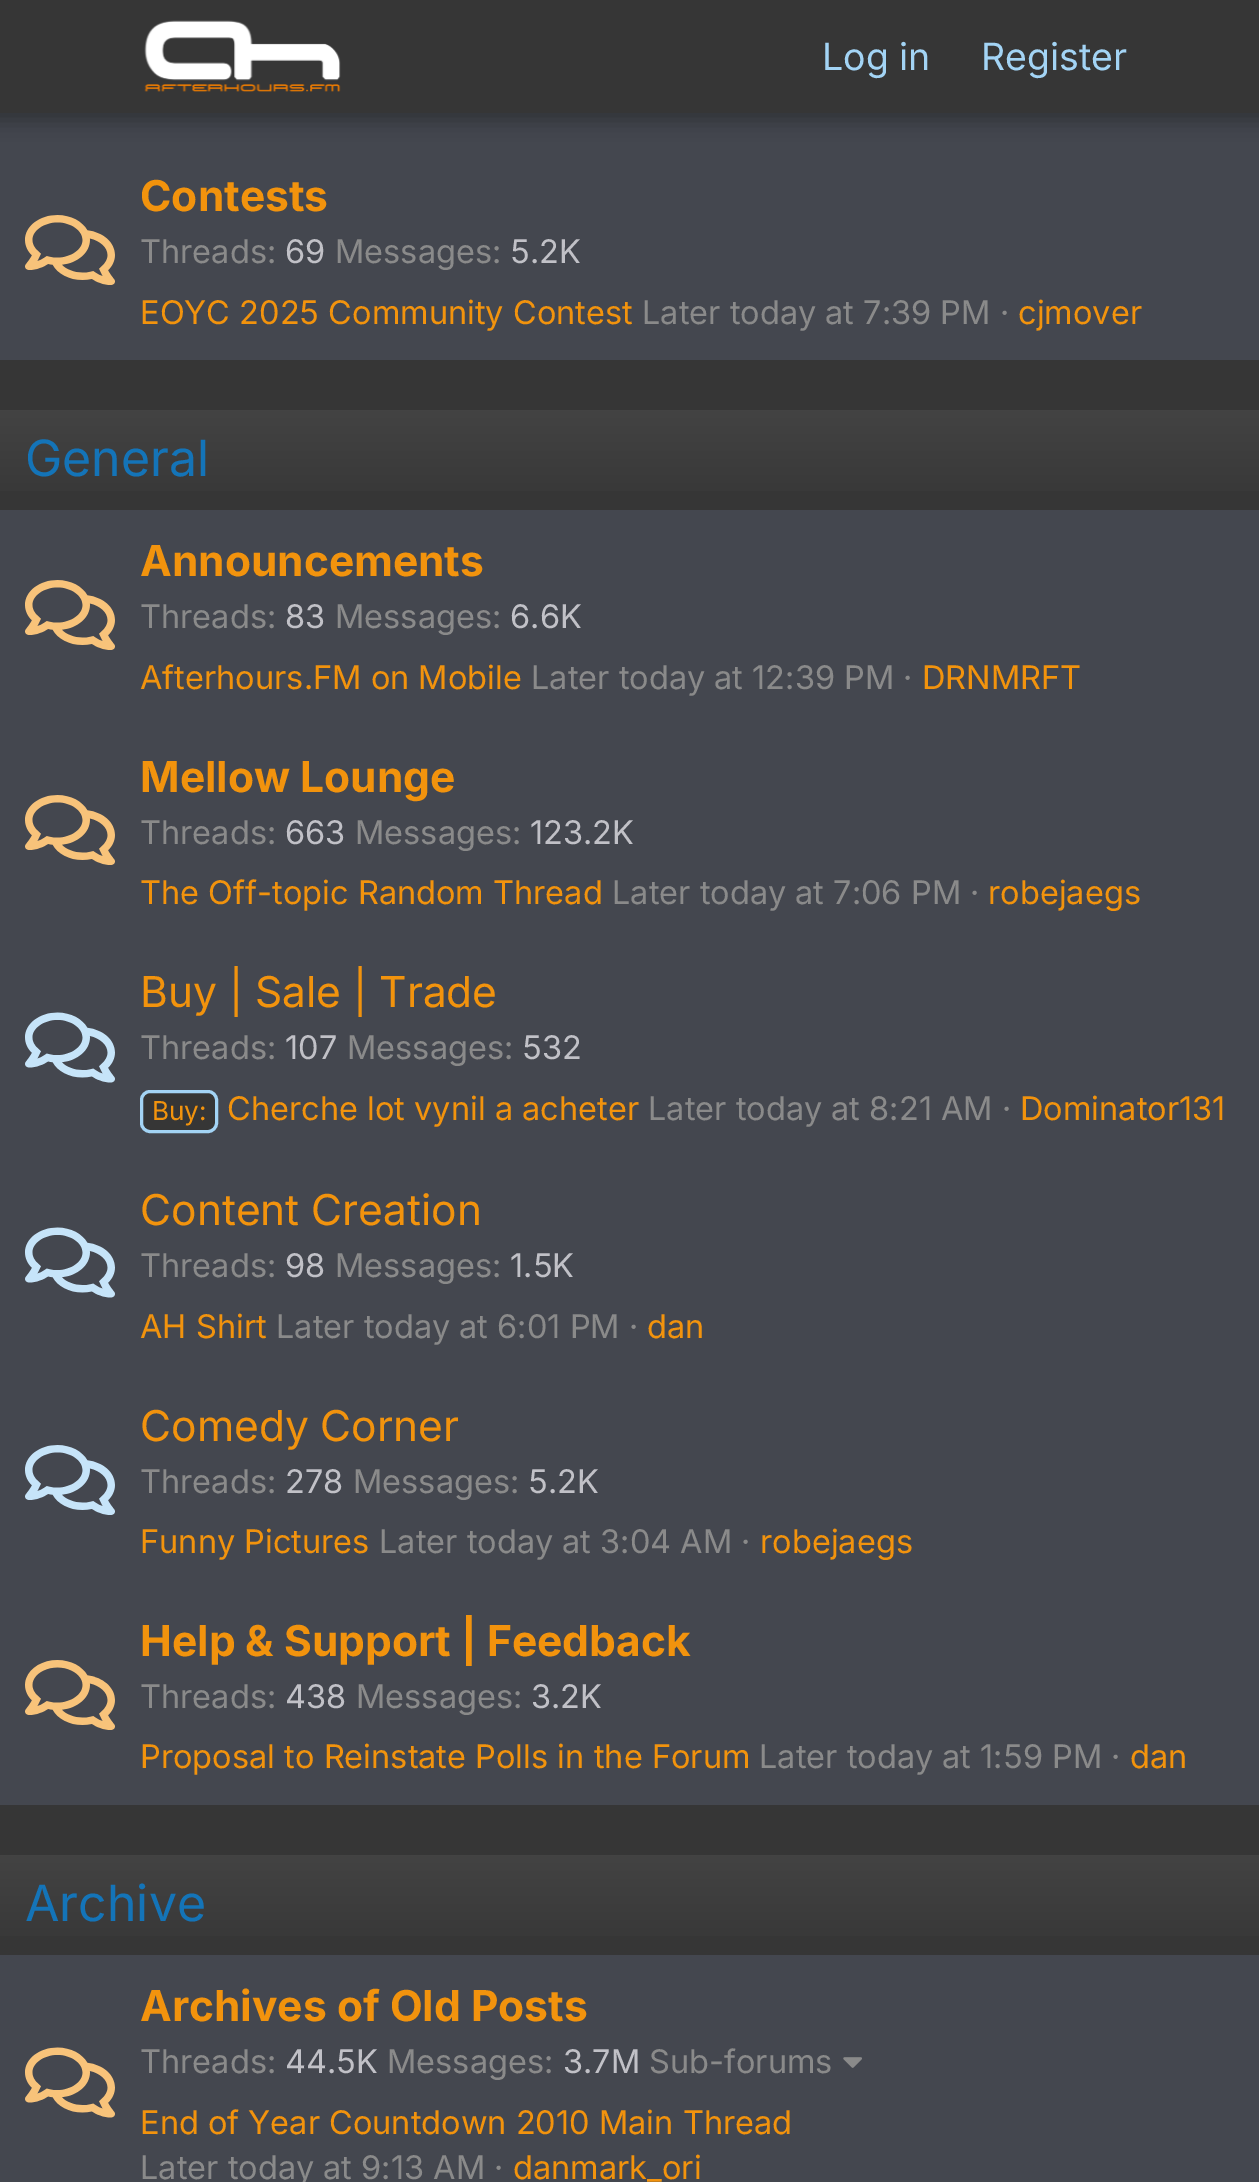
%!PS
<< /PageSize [1259 2182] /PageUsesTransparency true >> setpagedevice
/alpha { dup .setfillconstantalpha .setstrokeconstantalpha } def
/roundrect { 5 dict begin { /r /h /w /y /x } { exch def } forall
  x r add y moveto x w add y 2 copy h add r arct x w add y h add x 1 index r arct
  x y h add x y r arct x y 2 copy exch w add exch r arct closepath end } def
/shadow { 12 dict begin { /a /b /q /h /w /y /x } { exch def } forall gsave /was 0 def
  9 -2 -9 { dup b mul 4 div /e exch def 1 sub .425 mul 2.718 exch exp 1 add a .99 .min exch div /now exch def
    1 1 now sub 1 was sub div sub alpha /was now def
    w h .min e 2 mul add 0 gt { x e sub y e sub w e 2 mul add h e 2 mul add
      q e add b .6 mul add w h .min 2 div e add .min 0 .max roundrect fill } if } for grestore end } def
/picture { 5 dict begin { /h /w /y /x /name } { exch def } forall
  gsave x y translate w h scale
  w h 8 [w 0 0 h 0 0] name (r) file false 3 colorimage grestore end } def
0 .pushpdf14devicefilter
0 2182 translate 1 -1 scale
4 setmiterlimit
0.212 setgray
0 0 1259 2182 rectfill
0.267 0.278 0.31 setrgbcolor
0 113 1259 247 rectfill
0 setgray
-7 -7 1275 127 0 10 0.3 shadow
0.212 setgray
0 0 1259 113 rectfill
(img1.rgb) 144 20 197 72 picture
/Inter-Regular [37.5 0 0 -37.5 0 0] selectfont
0.639 0.831 0.961 setrgbcolor
822 70 moveto (Log in) show
981 70 moveto (Register) show
(img2.rgb) 25 215 90 70 picture
/Inter-Bold [42.5 0 0 -42.5 0 0] selectfont
0.949 0.576 0.051 setrgbcolor
140 211 moveto (Contests) show
/Inter-Regular [32.5 0 0 -32.5 0 0] selectfont
0.541 setgray
140 263 moveto (Threads:) show
0.757 0.757 0.78 setrgbcolor
285 263 moveto (69) show
0.541 setgray
335 263 moveto (Messages:) show
0.757 0.757 0.78 setrgbcolor
510 263 moveto (5.2K) show
0.949 0.576 0.051 setrgbcolor
140 324 moveto (EOYC 2025 Community Contest) show
0.541 setgray
642 324 moveto (Later today at 7:39 PM ·) show
0.949 0.576 0.051 setrgbcolor
1018 324 moveto (cjmover) show
0.267 0.278 0.31 setrgbcolor
0 510 1259 1295 rectfill
gsave newpath 0 410 moveto 1259 410 lineto 1259 491 lineto 0 491 lineto closepath clip newpath
<< /ShadingType 2 /ColorSpace /DeviceRGB /Coords [630 510 630 410] /Extend [true true] /Function << /FunctionType 2 /Domain [0 1] /C0 [0.212 0.212 0.212] /C1 [0.263 0.263 0.263] /N 1 >> >> shfill grestore
/Inter-Regular [50 0 0 -50 0 0] selectfont
0.078 0.455 0.722 setrgbcolor
25 476 moveto (General) show
(img2.rgb) 25 580 90 70 picture
/Inter-Bold [42.5 0 0 -42.5 0 0] selectfont
0.949 0.576 0.051 setrgbcolor
140 576 moveto (Announcements) show
/Inter-Regular [32.5 0 0 -32.5 0 0] selectfont
0.541 setgray
140 628 moveto (Threads:) show
0.757 0.757 0.78 setrgbcolor
285 628 moveto (83) show
0.541 setgray
335 628 moveto (Messages:) show
0.757 0.757 0.78 setrgbcolor
510 628 moveto (6.6K) show
0.949 0.576 0.051 setrgbcolor
140 689 moveto (Afterhours.FM on Mobile) show
0.541 setgray
531 689 moveto (Later today at 12:39 PM ·) show
0.949 0.576 0.051 setrgbcolor
922 689 moveto (DRNMRFT) show
(img2.rgb) 25 795 90 70 picture
/Inter-Bold [42.5 0 0 -42.5 0 0] selectfont
140 792 moveto (Mellow Lounge) show
/Inter-Regular [32.5 0 0 -32.5 0 0] selectfont
0.541 setgray
140 844 moveto (Threads:) show
0.757 0.757 0.78 setrgbcolor
285 844 moveto (663) show
0.541 setgray
355 844 moveto (Messages:) show
0.757 0.757 0.78 setrgbcolor
530 844 moveto (123.2K) show
0.949 0.576 0.051 setrgbcolor
140 904 moveto (The Off-topic Random Thread) show
0.541 setgray
612 904 moveto (Later today at 7:06 PM ·) show
0.949 0.576 0.051 setrgbcolor
988 904 moveto (robejaegs) show
(img3.rgb) 25 1012 90 71 picture
/Inter-Regular [42.5 0 0 -42.5 0 0] selectfont
140 1007 moveto (Buy | Sale | Trade) show
/Inter-Regular [32.5 0 0 -32.5 0 0] selectfont
0.541 setgray
140 1059 moveto (Threads:) show
0.757 0.757 0.78 setrgbcolor
285 1059 moveto (107) show
0.541 setgray
347 1059 moveto (Messages:) show
0.757 0.757 0.78 setrgbcolor
522 1059 moveto (532) show
0.212 setgray
141.5 1091.5 75 40 8.5 roundrect gsave fill grestore
0.639 0.831 0.961 setrgbcolor
3 setlinewidth
stroke
/Inter-Regular [26 0 0 -26 0 0] selectfont
0.949 0.576 0.051 setrgbcolor
152 1120 moveto (Buy:) show
/Inter-Regular [32.5 0 0 -32.5 0 0] selectfont
227 1120 moveto (Cherche lot vynil a acheter) show
0.541 setgray
648 1120 moveto (Later today at 8:21 AM ·) show
0.949 0.576 0.051 setrgbcolor
1020 1120 moveto (Dominator131) show
(img3.rgb) 25 1227 90 71 picture
/Inter-Regular [42.5 0 0 -42.5 0 0] selectfont
140 1225 moveto (Content Creation) show
/Inter-Regular [32.5 0 0 -32.5 0 0] selectfont
0.541 setgray
140 1277 moveto (Threads:) show
0.757 0.757 0.78 setrgbcolor
285 1277 moveto (98) show
0.541 setgray
335 1277 moveto (Messages:) show
0.757 0.757 0.78 setrgbcolor
510 1277 moveto (1.5K) show
0.949 0.576 0.051 setrgbcolor
140 1338 moveto (AH Shirt) show
0.541 setgray
276 1338 moveto (Later today at 6:01 PM ·) show
0.949 0.576 0.051 setrgbcolor
647 1338 moveto (dan) show
(img4.rgb) 25 1445 90 70 picture
/Inter-Regular [42.5 0 0 -42.5 0 0] selectfont
140 1441 moveto (Comedy Corner) show
/Inter-Regular [32.5 0 0 -32.5 0 0] selectfont
0.541 setgray
140 1493 moveto (Threads:) show
0.757 0.757 0.78 setrgbcolor
285 1493 moveto (278) show
0.541 setgray
353 1493 moveto (Messages:) show
0.757 0.757 0.78 setrgbcolor
528 1493 moveto (5.2K) show
0.949 0.576 0.051 setrgbcolor
140 1553 moveto (Funny Pictures) show
0.541 setgray
379 1553 moveto (Later today at 3:04 AM ·) show
0.949 0.576 0.051 setrgbcolor
760 1553 moveto (robejaegs) show
(img5.rgb) 25 1660 90 70 picture
/Inter-Bold [42.5 0 0 -42.5 0 0] selectfont
140 1656 moveto (Help & Support | Feedback) show
/Inter-Regular [32.5 0 0 -32.5 0 0] selectfont
0.541 setgray
140 1708 moveto (Threads:) show
0.757 0.757 0.78 setrgbcolor
285 1708 moveto (438) show
0.541 setgray
356 1708 moveto (Messages:) show
0.757 0.757 0.78 setrgbcolor
531 1708 moveto (3.2K) show
0.949 0.576 0.051 setrgbcolor
140 1768 moveto (Proposal to Reinstate Polls in the Forum) show
0.541 setgray
759 1768 moveto (Later today at 1:59 PM ·) show
0.949 0.576 0.051 setrgbcolor
1130 1768 moveto (dan) show
0.267 0.278 0.31 setrgbcolor
0 1955 1259 227 rectfill
gsave newpath 0 1855 moveto 1259 1855 lineto 1259 1936 lineto 0 1936 lineto closepath clip newpath
<< /ShadingType 2 /ColorSpace /DeviceRGB /Coords [630 1955 630 1855] /Extend [true true] /Function << /FunctionType 2 /Domain [0 1] /C0 [0.212 0.212 0.212] /C1 [0.263 0.263 0.263] /N 1 >> >> shfill grestore
/Inter-Regular [50 0 0 -50 0 0] selectfont
0.078 0.455 0.722 setrgbcolor
25 1921 moveto (Archive) show
(img6.rgb) 25 2047 90 71 picture
/Inter-Bold [42.5 0 0 -42.5 0 0] selectfont
0.949 0.576 0.051 setrgbcolor
140 2021 moveto (Archives of Old Posts) show
/Inter-Regular [32.5 0 0 -32.5 0 0] selectfont
0.541 setgray
140 2073 moveto (Threads:) show
0.757 0.757 0.78 setrgbcolor
285 2073 moveto (44.5K) show
0.541 setgray
387 2073 moveto (Messages:) show
0.757 0.757 0.78 setrgbcolor
563 2073 moveto (3.7M) show
0.541 setgray
649 2073 moveto (Sub-forums) show
(img7.rgb) 843 2057 19 11 picture
0.949 0.576 0.051 setrgbcolor
140 2134 moveto (End of Year Countdown 2010 Main Thread) show
0.541 setgray
140 2179 moveto (Later today at 9:13 AM ·) show
0.949 0.576 0.051 setrgbcolor
513 2179 moveto (danmark_ori) show
.poppdf14devicefilter showpage
